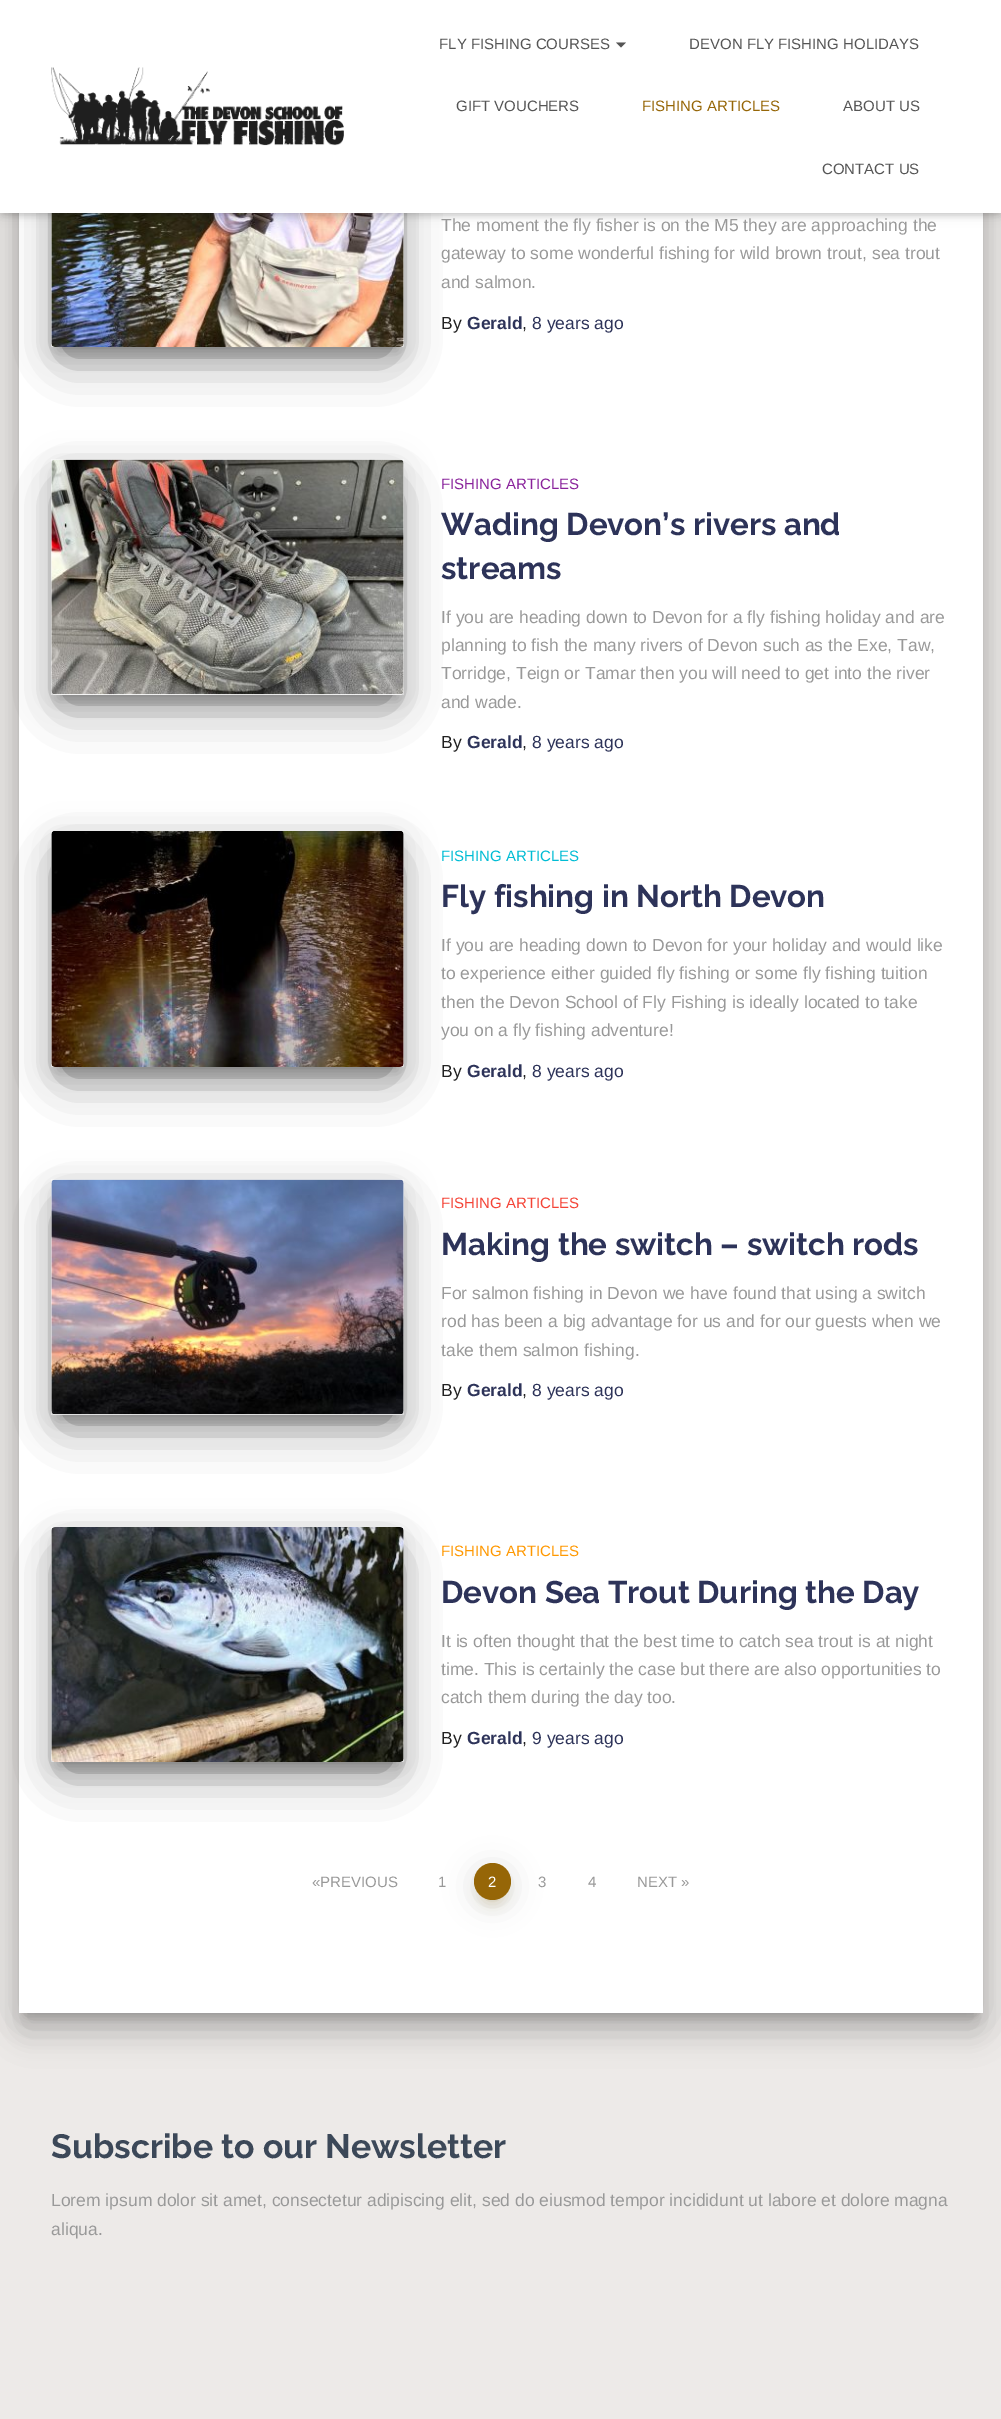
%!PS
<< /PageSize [1001 2419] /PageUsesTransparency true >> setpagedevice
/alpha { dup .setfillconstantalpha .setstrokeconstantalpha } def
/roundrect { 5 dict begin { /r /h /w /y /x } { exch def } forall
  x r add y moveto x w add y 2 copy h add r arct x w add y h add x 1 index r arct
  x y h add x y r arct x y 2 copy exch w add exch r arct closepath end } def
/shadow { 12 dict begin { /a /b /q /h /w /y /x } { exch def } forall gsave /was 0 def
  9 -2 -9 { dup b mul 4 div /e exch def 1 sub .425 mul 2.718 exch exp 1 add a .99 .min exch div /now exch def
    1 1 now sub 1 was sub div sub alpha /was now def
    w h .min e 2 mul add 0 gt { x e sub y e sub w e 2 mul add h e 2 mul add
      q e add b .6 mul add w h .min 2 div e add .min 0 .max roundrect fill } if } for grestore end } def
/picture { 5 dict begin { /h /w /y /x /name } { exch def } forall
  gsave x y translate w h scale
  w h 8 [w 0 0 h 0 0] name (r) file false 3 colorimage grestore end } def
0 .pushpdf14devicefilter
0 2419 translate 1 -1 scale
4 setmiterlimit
0.929 0.918 0.91 setrgbcolor
0 0 1001 2419 rectfill
0 setgray
25 -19 951 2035 1 6 0.2 shadow
13 -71 976 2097 14 19 0.12 shadow
16 -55 969 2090 10 15 0.14 shadow
1 setgray
19 213 964 1800 rectfill
0 setgray
58 128 340 223 0 6 0.2 shadow
51 116 353 237 4 15.5 0.12 shadow
66 146 323 207 0 24 0.56 shadow
(img2.rgb) 51 213 353 134 picture
3 8 996 207 0 3 0.1 shadow
0 1 1001 213 0 6 0.12 shadow
8 9 986 197 0 6 0.42 shadow
1 setgray
0 0 1001 213 rectfill
(img1.rgb) 51 67 293 79 picture
/LiberationSans-Regular [15 0 0 -15 0 0] selectfont
0.333 setgray
439 49 moveto (FLY FISHING COURSES) show
newpath 616 42.5 moveto 626 42.5 lineto 621 47.5 lineto closepath fill
689 49 moveto (DEVON FLY FISHING HOLIDAYS) show
456 111 moveto (GIFT VOUCHERS) show
0.588 0.4 0.027 setrgbcolor
642 111 moveto (FISHING ARTICLES) show
0.333 setgray
843 111 moveto (ABOUT US) show
822 174 moveto (CONTACT US) show
/LiberationSans-Regular [17.5 0 0 -17.5 0 0] selectfont
0.6 setgray
441 231 moveto (The moment the fly fisher is on the M5 they are approaching the) show
441 259 moveto (gateway to some wonderful fishing for wild brown trout, sea trout) show
441 288 moveto (and salmon.) show
0.129 setgray
441 329 moveto (By) show
/LiberationSans-Bold [17.5 0 0 -17.5 0 0] selectfont
0.176 0.2 0.349 setrgbcolor
467 329 moveto (Gerald) show
/LiberationSans-Regular [17.5 0 0 -17.5 0 0] selectfont
0.129 setgray
522 329 moveto (,) show
0.176 0.2 0.349 setrgbcolor
532 329 moveto (8 years ago) show
0 setgray
58 476 340 223 0 6 0.2 shadow
51 465 353 235 4 15.5 0.12 shadow
66 495 323 205 0 24 0.56 shadow
(img3.rgb) 51 459 353 236 picture
/LiberationSans-Regular [15 0 0 -15 0 0] selectfont
0.537 0.133 0.608 setrgbcolor
441 489 moveto (FISHING ARTICLES) show
/Raleway-Bold [31.25 0 0 -31.25 0 0] selectfont
0.176 0.2 0.349 setrgbcolor
441 535 moveto (Wading Devon’s rivers and) show
441 579 moveto (streams) show
/LiberationSans-Regular [17.5 0 0 -17.5 0 0] selectfont
0.6 setgray
441 623 moveto (If you are heading down to Devon for a fly fishing holiday and are) show
441 651 moveto (planning to fish the many rivers of Devon such as the Exe, Taw,) show
441 679 moveto (Torridge, Teign or Tamar then you will need to get into the river) show
441 708 moveto (and wade.) show
0.129 setgray
441 748 moveto (By) show
/LiberationSans-Bold [17.5 0 0 -17.5 0 0] selectfont
0.176 0.2 0.349 setrgbcolor
467 748 moveto (Gerald) show
/LiberationSans-Regular [17.5 0 0 -17.5 0 0] selectfont
0.129 setgray
522 748 moveto (,) show
0.176 0.2 0.349 setrgbcolor
532 748 moveto (8 years ago) show
0 setgray
58 848 340 223 0 6 0.2 shadow
51 836 353 237 4 15.5 0.12 shadow
66 866 323 207 0 24 0.56 shadow
(img4.rgb) 51 831 353 236 picture
/LiberationSans-Regular [15 0 0 -15 0 0] selectfont
0 0.737 0.831 setrgbcolor
441 861 moveto (FISHING ARTICLES) show
/Raleway-Bold [31.25 0 0 -31.25 0 0] selectfont
0.176 0.2 0.349 setrgbcolor
441 907 moveto (Fly fishing in North Devon) show
/LiberationSans-Regular [17.5 0 0 -17.5 0 0] selectfont
0.6 setgray
441 951 moveto (If you are heading down to Devon for your holiday and would like) show
441 979 moveto (to experience either guided fly fishing or some fly fishing tuition) show
441 1008 moveto (then the Devon School of Fly Fishing is ideally located to take) show
441 1036 moveto (you on a fly fishing adventure!) show
0.129 setgray
441 1077 moveto (By) show
/LiberationSans-Bold [17.5 0 0 -17.5 0 0] selectfont
0.176 0.2 0.349 setrgbcolor
467 1077 moveto (Gerald) show
/LiberationSans-Regular [17.5 0 0 -17.5 0 0] selectfont
0.129 setgray
522 1077 moveto (,) show
0.176 0.2 0.349 setrgbcolor
532 1077 moveto (8 years ago) show
0 setgray
58 1196 340 223 0 6 0.2 shadow
51 1185 353 235 4 15.5 0.12 shadow
66 1215 323 205 0 24 0.56 shadow
(img5.rgb) 51 1179 353 236 picture
/LiberationSans-Regular [15 0 0 -15 0 0] selectfont
0.957 0.263 0.212 setrgbcolor
441 1208 moveto (FISHING ARTICLES) show
/Raleway-Bold [31.25 0 0 -31.25 0 0] selectfont
0.176 0.2 0.349 setrgbcolor
441 1255 moveto (Making the switch – switch rods) show
/LiberationSans-Regular [17.5 0 0 -17.5 0 0] selectfont
0.6 setgray
441 1299 moveto (For salmon fishing in Devon we have found that using a switch) show
441 1327 moveto (rod has been a big advantage for us and for our guests when we) show
441 1356 moveto (take them salmon fishing.) show
0.129 setgray
441 1396 moveto (By) show
/LiberationSans-Bold [17.5 0 0 -17.5 0 0] selectfont
0.176 0.2 0.349 setrgbcolor
467 1396 moveto (Gerald) show
/LiberationSans-Regular [17.5 0 0 -17.5 0 0] selectfont
0.129 setgray
522 1396 moveto (,) show
0.176 0.2 0.349 setrgbcolor
532 1396 moveto (8 years ago) show
0 setgray
58 1544 340 222 0 6 0.2 shadow
51 1533 353 235 4 15.5 0.12 shadow
66 1563 323 205 0 24 0.56 shadow
(img6.rgb) 51 1527 353 235 picture
/LiberationSans-Regular [15 0 0 -15 0 0] selectfont
1 0.596 0 setrgbcolor
441 1556 moveto (FISHING ARTICLES) show
/Raleway-Bold [31.25 0 0 -31.25 0 0] selectfont
0.176 0.2 0.349 setrgbcolor
441 1603 moveto (Devon Sea Trout During the Day) show
/LiberationSans-Regular [17.5 0 0 -17.5 0 0] selectfont
0.6 setgray
441 1647 moveto (It is often thought that the best time to catch sea trout is at night) show
441 1675 moveto (time. This is certainly the case but there are also opportunities to) show
441 1703 moveto (catch them during the day too.) show
0.129 setgray
441 1744 moveto (By) show
/LiberationSans-Bold [17.5 0 0 -17.5 0 0] selectfont
0.176 0.2 0.349 setrgbcolor
467 1744 moveto (Gerald) show
/LiberationSans-Regular [17.5 0 0 -17.5 0 0] selectfont
0.129 setgray
522 1744 moveto (,) show
0.176 0.2 0.349 setrgbcolor
532 1744 moveto (9 years ago) show
/LiberationSans-Regular [15 0 0 -15 0 0] selectfont
0.6 setgray
312 1887 moveto («PREVIOUS) show
438 1887 moveto (1) show
0.588 0.4 0.027 setrgbcolor
480 1879 25 25 12.5 6 0.2 shadow
0 setgray
474 1868 37 37 18.5 14.5 0.12 shadow
0.588 0.4 0.027 setrgbcolor
newpath 492.5 1881.5 18.5 0 360 arc closepath fill
1 setgray
488 1887 moveto (2) show
0.6 setgray
538 1887 moveto (3) show
588 1887 moveto (4) show
637 1887 moveto (NEXT ») show
/Raleway-Bold [33.75 0 0 -33.75 0 0] selectfont
0.235 0.282 0.345 setrgbcolor
51 2158 moveto (Subscribe to our Newsletter) show
/LiberationSans-Regular [17.5 0 0 -17.5 0 0] selectfont
0.6 setgray
51 2206 moveto (Lorem ipsum dolor sit amet, consectetur adipiscing elit, sed do eiusmod tempor incididunt ut labore et dolore magna) show
51 2235 moveto (aliqua.) show
.poppdf14devicefilter showpage
